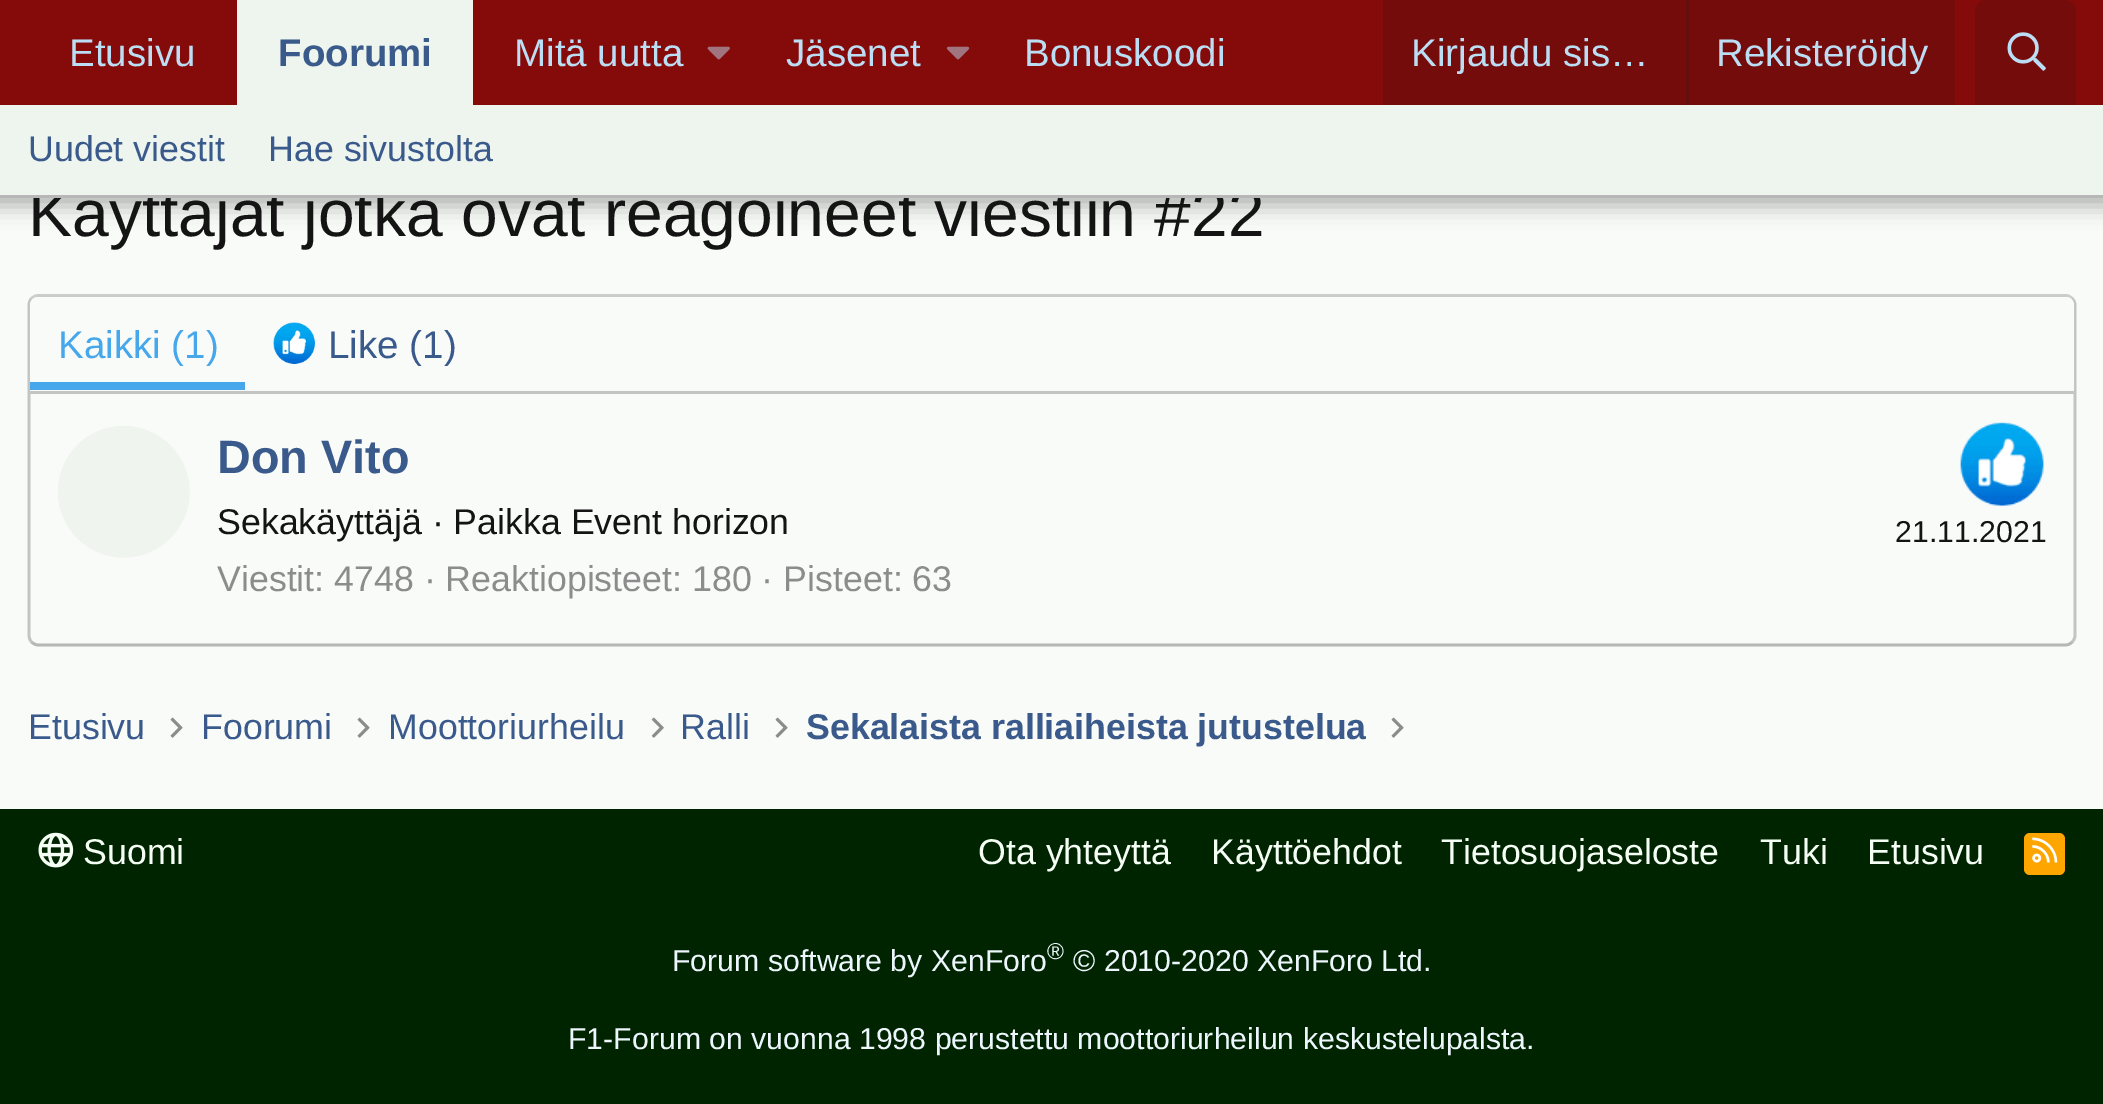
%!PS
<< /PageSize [2103 1104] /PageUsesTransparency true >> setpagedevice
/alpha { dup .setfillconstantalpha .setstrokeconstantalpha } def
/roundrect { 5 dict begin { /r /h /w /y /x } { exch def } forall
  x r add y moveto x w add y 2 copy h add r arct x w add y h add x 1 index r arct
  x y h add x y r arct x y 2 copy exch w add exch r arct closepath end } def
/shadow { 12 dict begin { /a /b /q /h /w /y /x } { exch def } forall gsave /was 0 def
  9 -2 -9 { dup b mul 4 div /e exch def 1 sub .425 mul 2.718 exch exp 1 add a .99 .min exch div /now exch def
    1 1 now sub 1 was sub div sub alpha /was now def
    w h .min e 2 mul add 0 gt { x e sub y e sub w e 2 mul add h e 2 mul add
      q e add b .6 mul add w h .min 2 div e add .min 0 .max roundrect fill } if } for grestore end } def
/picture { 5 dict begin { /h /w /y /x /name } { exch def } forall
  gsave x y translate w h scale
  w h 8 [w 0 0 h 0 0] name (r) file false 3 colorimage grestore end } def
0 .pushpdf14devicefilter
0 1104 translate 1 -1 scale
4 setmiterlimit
0.976 0.984 0.976 setrgbcolor
0 0 2103 1104 rectfill
0 setgray
-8 -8 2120 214 0 11 0.3 shadow
0.522 0.043 0.043 setrgbcolor
0 0 2103 105 rectfill
/LiberationSans-Regular [38.5 0 0 -38.5 0 0] selectfont
0.737 0.871 0.961 setrgbcolor
69 66 moveto (Etusivu) show
0.933 0.957 0.933 setrgbcolor
237 0 236 105 rectfill
/LiberationSans-Bold [38.5 0 0 -38.5 0 0] selectfont
0.224 0.353 0.545 setrgbcolor
278 66 moveto (Foorumi) show
/LiberationSans-Regular [38.5 0 0 -38.5 0 0] selectfont
0.737 0.871 0.961 setrgbcolor
514 66 moveto (Mitä uutta) show
(img1.rgb) 707 46 23 14 picture
786 66 moveto (Jäsenet) show
(img2.rgb) 946 46 24 14 picture
1024 66 moveto (Bonuskoodi) show
0.455 0.047 0.047 setrgbcolor
1383 0 572 105 rectfill
0.737 0.871 0.961 setrgbcolor
1411 66 moveto (Kirjaudu sis…) show
0.4 0.051 0.051 setrgbcolor
1686 0 3 105 rectfill
0.737 0.871 0.961 setrgbcolor
1716 66 moveto (Rekisteröidy) show
0.455 0.047 0.047 setrgbcolor
newpath 1986 0 moveto 2065 0 lineto 2071 0 2076 5 2076 11 curveto 2076 105 lineto 1975 105 lineto 1975 11 lineto 1975 5 1980 0 1986 0 curveto closepath fill
(img3.rgb) 2007 32 39 39 picture
/LiberationSans-Regular [66 0 0 -66 0 0] selectfont
0.078 setgray
28 236 moveto (Käyttäjät jotka ovat reagoineet viestiin #22) show
0.933 0.957 0.933 setrgbcolor
0 105 2103 90 rectfill
0.718 setgray
0 195 2103 3 rectfill
/LiberationSans-Regular [35.75 0 0 -35.75 0 0] selectfont
0.224 0.353 0.545 setrgbcolor
28 161 moveto (Uudet viestit) show
268 161 moveto (Hae sivustolta) show
0.8 setgray
2.8 setlinewidth
newpath 31.5 298.5 moveto 33.5 296.5 36 295.5 38.5 295.5 curveto 2065 295.5 lineto 2068 295.5 2070.5 296.5 2072 298.5 curveto stroke
0.769 setgray
newpath 2072 298.5 moveto 2074 300 2075 302.5 2075 305 curveto 2075 635 lineto 2075 638 2074 640.5 2072 642 curveto stroke
0.718 setgray
newpath 2072 642 moveto 2070.5 644 2068 645 2065 645 curveto 38.5 645 lineto 36 645 33.5 644 31.5 642 curveto stroke
0.769 setgray
newpath 31.5 642 moveto 30 640.5 29 638 29 635 curveto 29 305 lineto 29 302.5 30 300 31.5 298.5 curveto stroke
0.976 0.984 0.976 setrgbcolor
newpath 38 297 moveto 2066 297 lineto 2070.5 297 2074 300.5 2074 305 curveto 2074 393 lineto 30 393 lineto 30 305 lineto 30 300.5 33.5 297 38 297 curveto closepath fill
0.769 setgray
30 391 2044 3 rectfill
0.278 0.655 0.922 setrgbcolor
30 382 215 8 rectfill
/LiberationSans-Regular [38.5 0 0 -38.5 0 0] selectfont
58 358 moveto (Kaikki \(1\)) show
(img4.rgb) 273 322 43 43 picture
0.224 0.353 0.545 setrgbcolor
328 358 moveto (Like \(1\)) show
(img5.rgb) 58 426 132 132 picture
/LiberationSans-Bold [46.75 0 0 -46.75 0 0] selectfont
217 473 moveto (Don Vito) show
/LiberationSans-Regular [35.75 0 0 -35.75 0 0] selectfont
0.078 setgray
217 534 moveto (Sekakäyttäjä · Paikka Event horizon) show
(img6.rgb) 1959 422 86 85 picture
/LiberationSans-Regular [30.25 0 0 -30.25 0 0] selectfont
1895 542 moveto (21.11.2021) show
/LiberationSans-Regular [35.75 0 0 -35.75 0 0] selectfont
0.549 setgray
217 591 moveto (Viestit: 4748 · Reaktiopisteet: 180 · Pisteet: 63) show
0.224 0.353 0.545 setrgbcolor
28 739 moveto (Etusivu) show
(img7.rgb) 170 717 13 21 picture
201 739 moveto (Foorumi) show
(img7.rgb) 357 717 13 21 picture
388 739 moveto (Moottoriurheilu) show
(img8.rgb) 651 717 13 21 picture
680 739 moveto (Ralli) show
(img7.rgb) 775 717 13 21 picture
/LiberationSans-Bold [35.75 0 0 -35.75 0 0] selectfont
806 739 moveto (Sekalaista ralliaiheista jutustelua) show
(img7.rgb) 1391 717 13 21 picture
0 0.137 0 setrgbcolor
0 809 2103 295 rectfill
(img9.rgb) 38 832 36 36 picture
/LiberationSans-Regular [35.75 0 0 -35.75 0 0] selectfont
0.961 1 0.961 setrgbcolor
83 864 moveto (Suomi) show
978 864 moveto (Ota yhteyttä) show
1211 864 moveto (Käyttöehdot) show
1441 864 moveto (Tietosuojaseloste) show
1760 864 moveto (Tuki) show
1867 864 moveto (Etusivu) show
1 0.647 0 setrgbcolor
2024 833 41 42 6 roundrect fill
(img10.rgb) 2032 837 26 26 picture
/LiberationSans-Regular [30.25 0 0 -30.25 0 0] selectfont
0.929 0.965 0.992 setrgbcolor
672 971 moveto (Forum software by XenForo) show
/LiberationSans-Regular [23 0 0 -23 0 0] selectfont
1047 959 moveto (®) show
/LiberationSans-Regular [30.25 0 0 -30.25 0 0] selectfont
1073 971 moveto (© 2010-2020 XenForo Ltd.) show
568 1049 moveto (F1-Forum on vuonna 1998 perustettu moottoriurheilun keskustelupalsta.) show
.poppdf14devicefilter showpage
